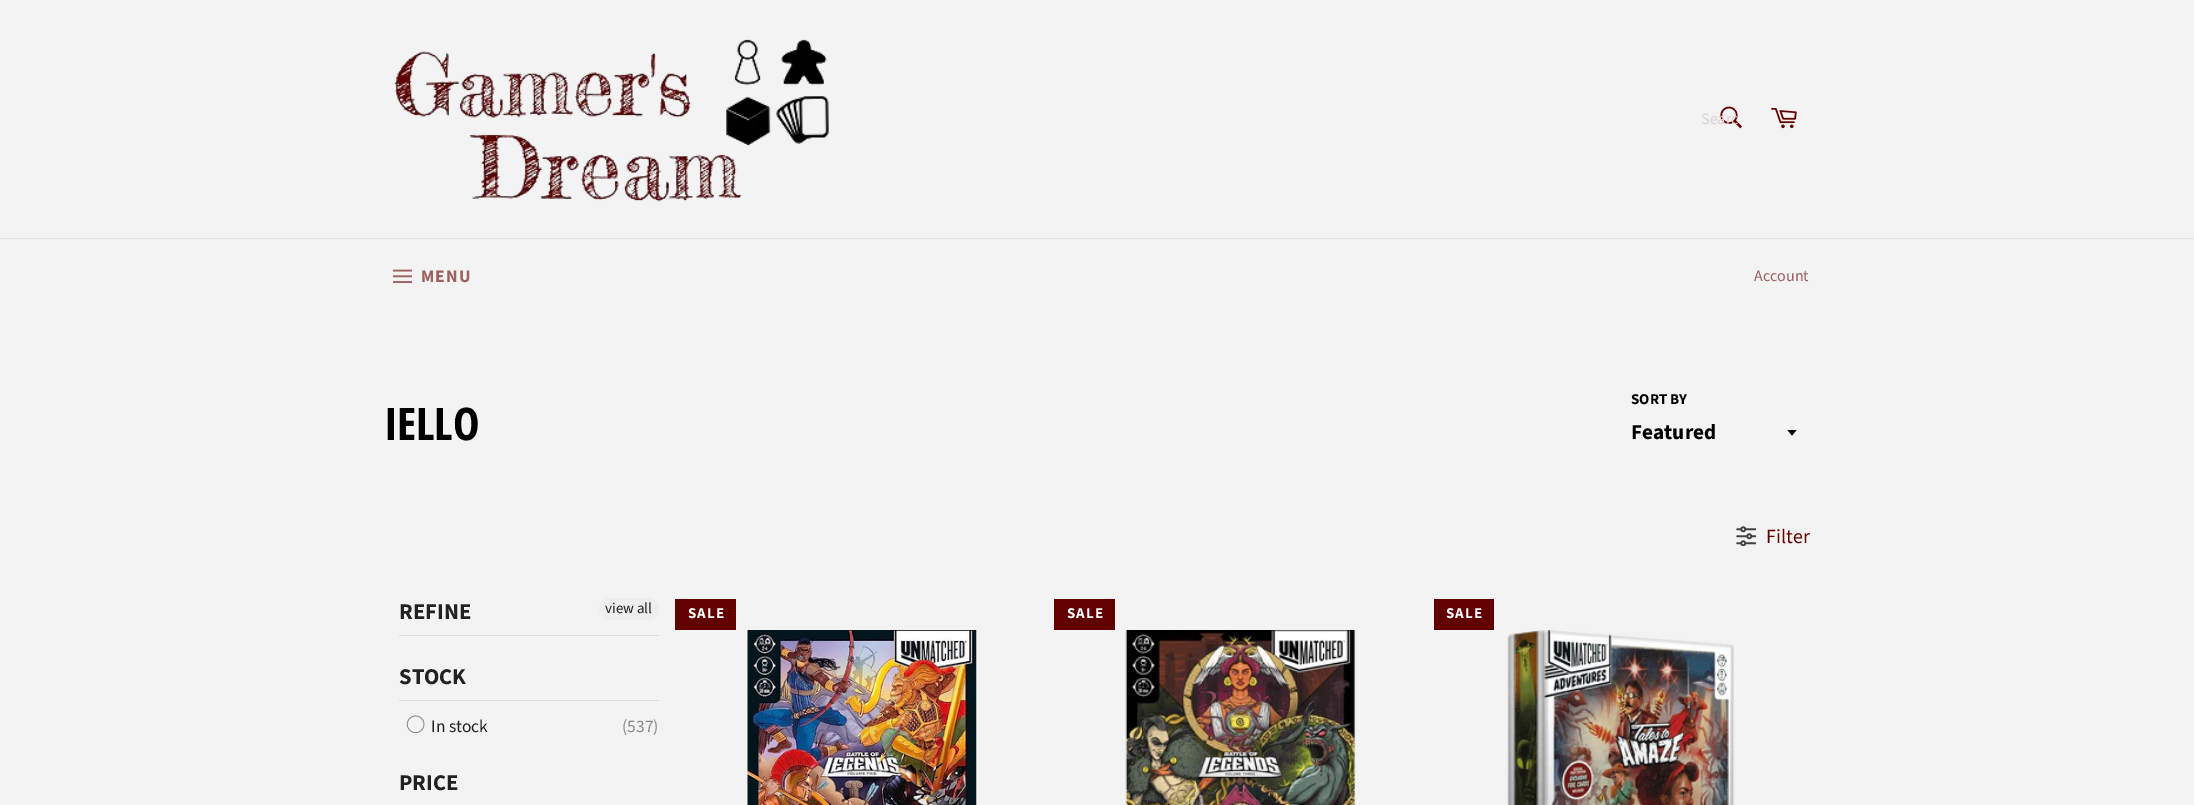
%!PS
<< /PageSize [2194 805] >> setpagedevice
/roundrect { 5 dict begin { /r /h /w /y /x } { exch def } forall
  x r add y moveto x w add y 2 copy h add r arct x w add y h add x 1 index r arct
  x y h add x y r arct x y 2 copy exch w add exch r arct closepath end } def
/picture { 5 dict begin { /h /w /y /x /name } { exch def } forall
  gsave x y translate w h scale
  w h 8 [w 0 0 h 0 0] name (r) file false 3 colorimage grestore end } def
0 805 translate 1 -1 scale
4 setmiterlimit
0.953 setgray
0 0 2194 805 rectfill
(img1.rgb) 394 39 435 163 picture
(img2.rgb) 1720 106 22 23 picture
/SourceSansPro-Regular [16 0 0 -16 0 0] selectfont
0.875 0.82 0.82 setrgbcolor
1701 124 moveto (Searc) show
(img3.rgb) 1771 108 26 21 picture
0.902 setgray
0 238 2194 1 rectfill
(img4.rgb) 392 269 21 14 picture
/SourceSansPro-Bold [17.5 0 0 -17.5 0 0] selectfont
0.612 0.38 0.38 setrgbcolor
421 282 moveto 1 0 (MENU) ashow
/SourceSansPro-Regular [16 0 0 -16 0 0] selectfont
1754 281 moveto (Account) show
/OpenSansCondensed-Bold [45 0 0 -45 0 0] selectfont
0 setgray
385 440 moveto (IELLO) show
/SourceSansPro-Bold [15 0 0 -15 0 0] selectfont
1631 404 moveto (SORT BY) show
newpath 1787.5 430 moveto 1792 435.5 lineto 1796.5 430 lineto closepath fill
/SourceSansPro-Bold [21.25 0 0 -21.25 0 0] selectfont
1631 439 moveto (Featured) show
(img5.rgb) 1736 526 20 20 picture
/SourceSansPro-Regular [20 0 0 -20 0 0] selectfont
0.384 0 0 setrgbcolor
1766 543 moveto (Filter) show
0.867 setgray
399 635 260 1 rectfill
/SourceSansPro-Bold [22.5 0 0 -22.5 0 0] selectfont
0.133 setgray
399 619 moveto (REFINE) show
0.933 setgray
599 598 60 22 11 roundrect fill
/SourceSansPro-Regular [15 0 0 -15 0 0] selectfont
0.133 setgray
605 613 moveto (view all) show
0.867 setgray
399 700 260 1 rectfill
/SourceSansPro-Bold [22.5 0 0 -22.5 0 0] selectfont
0.133 setgray
399 684 moveto (STOCK) show
(img6.rgb) 406 715 19 19 picture
/SourceSansPro-Regular [17.5 0 0 -17.5 0 0] selectfont
431 732 moveto (In stock) show
0.533 setgray
622 732 moveto (\(537\)) show
/SourceSansPro-Bold [22.5 0 0 -22.5 0 0] selectfont
0.133 setgray
399 790 moveto (PRICE) show
0.384 0 0 setrgbcolor
675 599 61 31 rectfill
/SourceSansPro-Bold [15 0 0 -15 0 0] selectfont
1 setgray
688 618 moveto 1 0 (SALE) ashow
(img7.rgb) 747 630 230 175 picture
0.384 0 0 setrgbcolor
1054 599 61 31 rectfill
1 setgray
1067 618 moveto 1 0 (SALE) ashow
(img8.rgb) 1125 630 231 175 picture
0.384 0 0 setrgbcolor
1434 599 60 31 rectfill
1 setgray
1446 618 moveto 1 0 (SALE) ashow
(img9.rgb) 1507 630 228 175 picture
showpage
